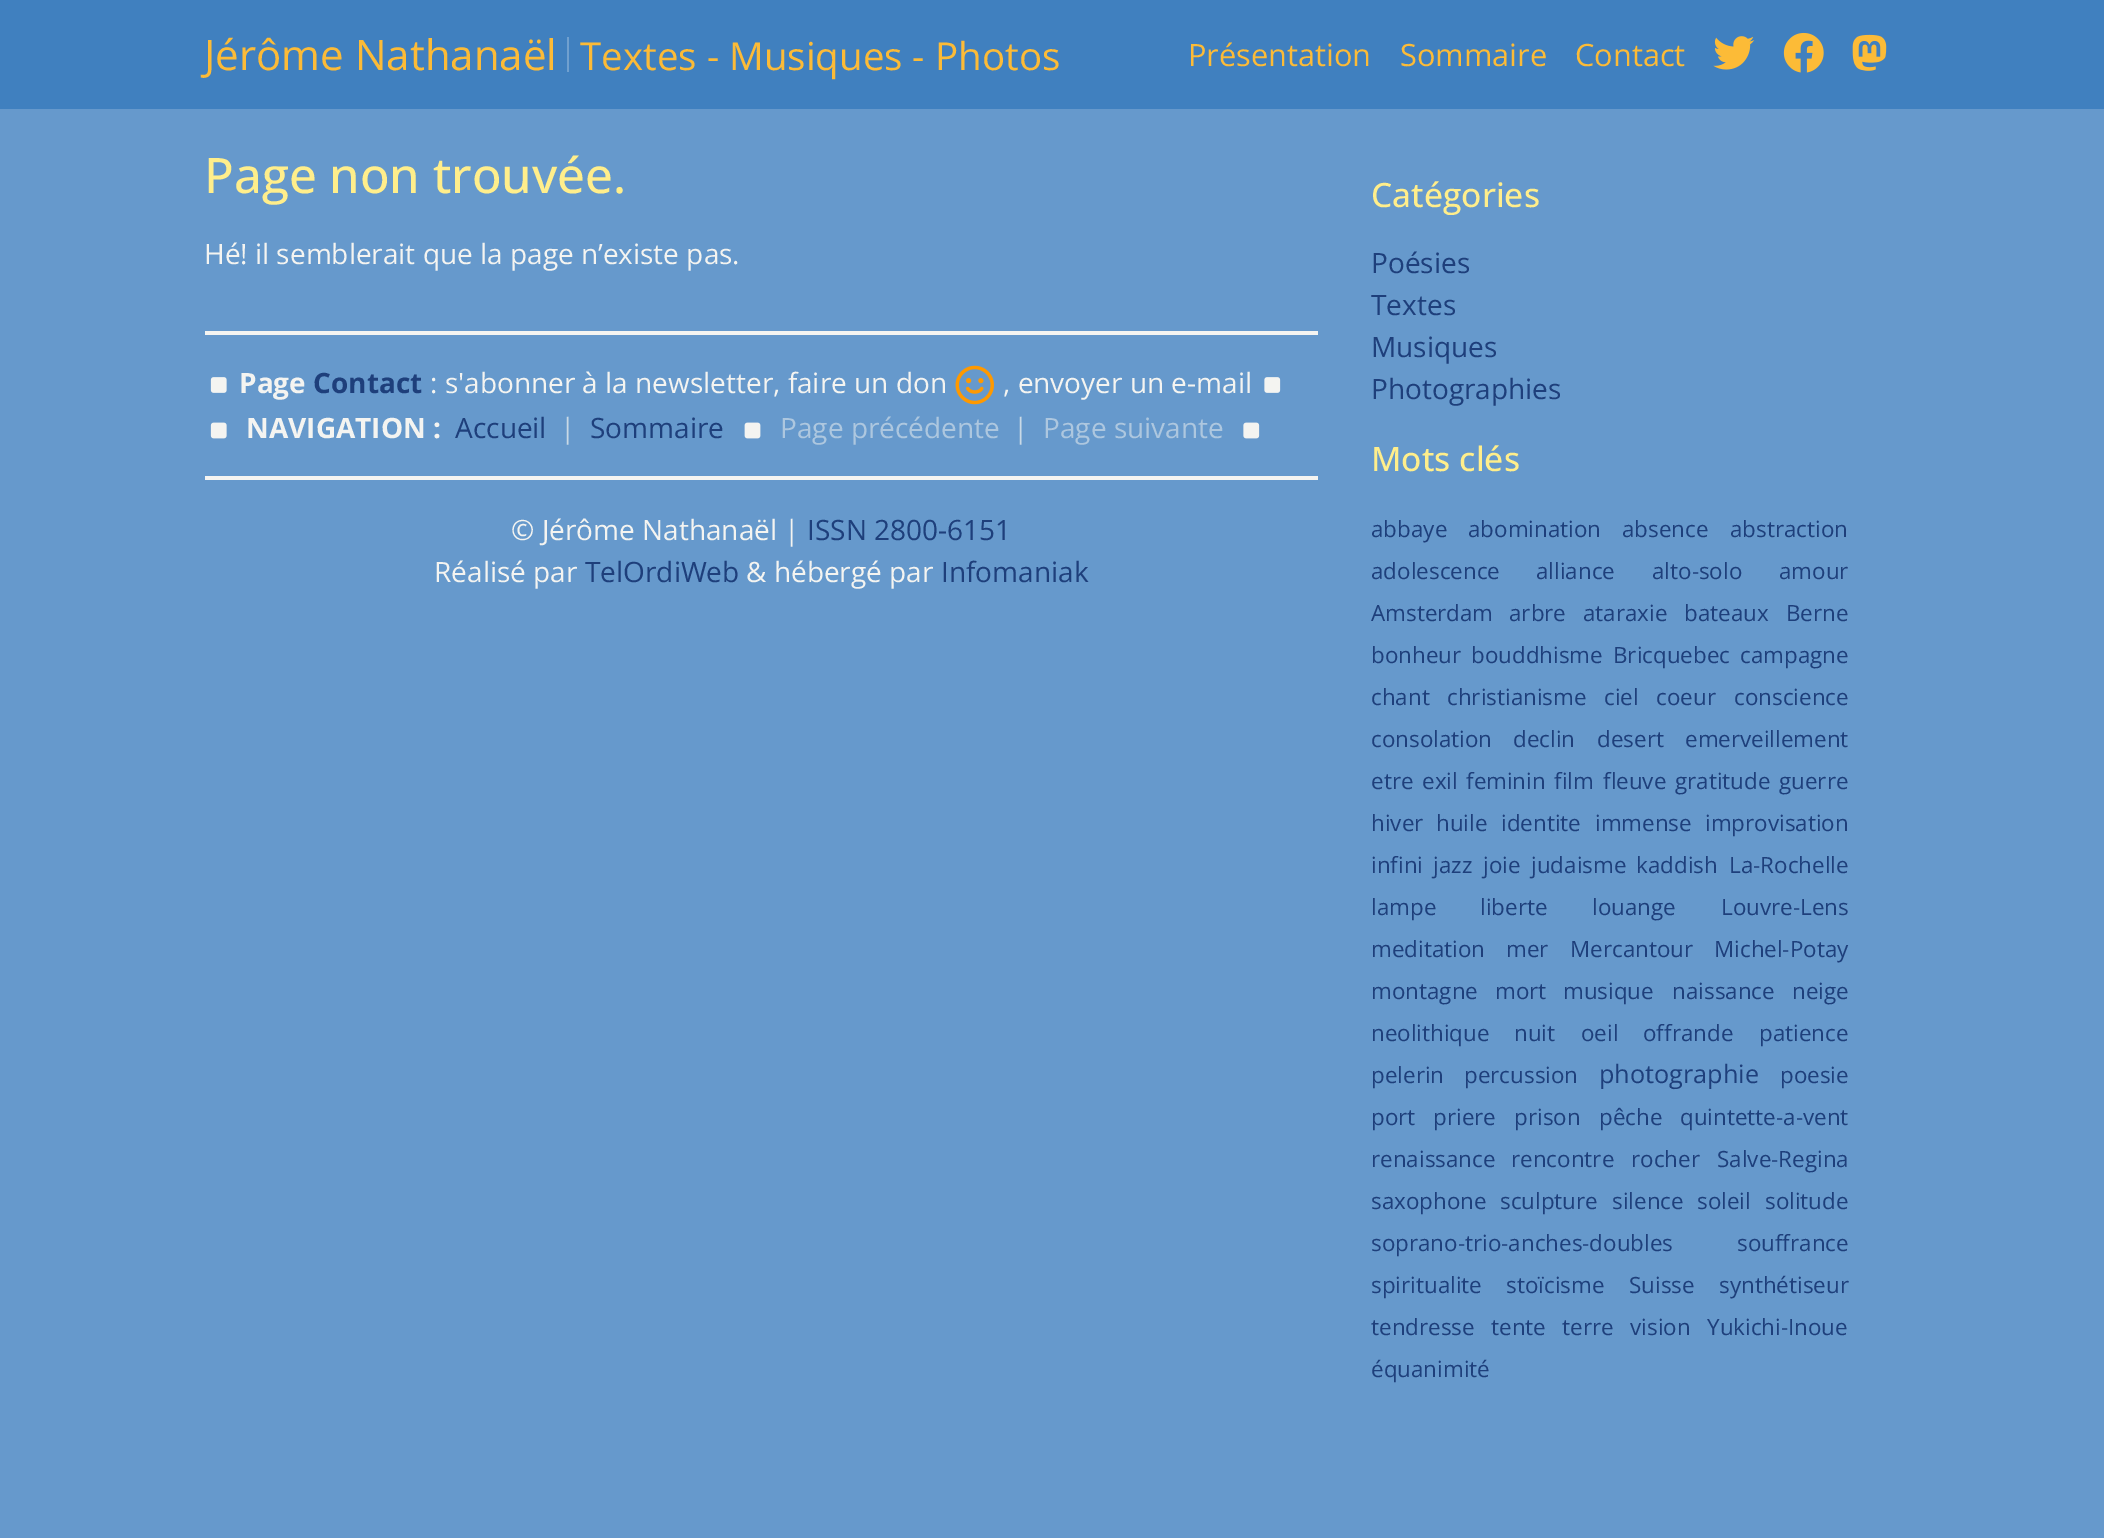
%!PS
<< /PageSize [2104 1538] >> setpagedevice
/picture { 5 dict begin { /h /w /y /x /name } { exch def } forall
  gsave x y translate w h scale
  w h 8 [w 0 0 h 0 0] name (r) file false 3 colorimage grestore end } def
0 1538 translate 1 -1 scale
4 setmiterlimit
0.4 0.6 0.8 setrgbcolor
0 0 2104 1538 rectfill
0.251 0.502 0.749 setrgbcolor
0 0 2104 109 rectfill
/OpenSans-Regular [42 0 0 -42 0 0] selectfont
0.988 0.733 0.216 setrgbcolor
204 70 moveto (Jérôme Nathanaël) show
0.439 0.627 0.812 setrgbcolor
567 37 2 35 rectfill
/OpenSans-Regular [38.5 0 0 -38.5 0 0] selectfont
0.988 0.733 0.216 setrgbcolor
580 70 moveto (Textes - Musiques - Photos) show
/OpenSans-Regular [30.75 0 0 -30.75 0 0] selectfont
1188 66 moveto (Présentation) show
1400 66 moveto (Sommaire) show
1575 66 moveto (Contact) show
(img1.rgb) 1713 36 42 34 picture
(img2.rgb) 1783 32 41 41 picture
(img3.rgb) 1852 34 35 37 picture
/OpenSans-Medium [49 0 0 -49 0 0] selectfont
1 0.933 0.545 setrgbcolor
204 193 moveto (Page non trouvée.) show
/OpenSans-Regular [28 0 0 -28 0 0] selectfont
0.957 0.957 0.945 setrgbcolor
204 264 moveto (Hé! il semblerait que la page n’existe pas.) show
205 331 1113 4 rectfill
(img4.rgb) 210 377 17 16 picture
/OpenSans-Bold [28 0 0 -28 0 0] selectfont
239 393 moveto (Page) show
0.118 0.247 0.482 setrgbcolor
313 393 moveto (Contact) show
/OpenSans-Regular [28 0 0 -28 0 0] selectfont
0.957 0.957 0.945 setrgbcolor
430 393 moveto (: s'abonner à la newsletter, faire un don) show
(img5.rgb) 955 365 39 40 picture
1003 393 moveto (, envoyer un e-mail) show
(img6.rgb) 1264 377 17 16 picture
(img7.rgb) 210 422 17 17 picture
/OpenSans-Bold [28 0 0 -28 0 0] selectfont
246 438 moveto (NAVIGATION :) show
/OpenSans-Regular [28 0 0 -28 0 0] selectfont
0.118 0.247 0.482 setrgbcolor
455 438 moveto (Accueil) show
0.788 0.851 0.902 setrgbcolor
560 438 moveto (|) show
0.118 0.247 0.482 setrgbcolor
590 438 moveto (Sommaire) show
(img8.rgb) 744 422 17 17 picture
0.678 0.78 0.875 setrgbcolor
780 438 moveto (Page précédente) show
0.788 0.851 0.902 setrgbcolor
1013 438 moveto (|) show
0.678 0.78 0.875 setrgbcolor
1043 438 moveto (Page suivante) show
(img9.rgb) 1243 422 17 17 picture
0.957 0.957 0.945 setrgbcolor
205 476 1113 4 rectfill
511 540 moveto (© Jérôme Nathanaël |) show
0.118 0.247 0.482 setrgbcolor
807 540 moveto (ISSN 2800-6151) show
0.957 0.957 0.945 setrgbcolor
434 582 moveto (Réalisé par) show
0.118 0.247 0.482 setrgbcolor
585 582 moveto (TelOrdiWeb) show
0.957 0.957 0.945 setrgbcolor
746 582 moveto (& hébergé par) show
0.118 0.247 0.482 setrgbcolor
941 582 moveto (Infomaniak) show
/OpenSans-Medium [33.5 0 0 -33.5 0 0] selectfont
1 0.933 0.545 setrgbcolor
1371 207 moveto (Catégories) show
/OpenSans-Regular [28 0 0 -28 0 0] selectfont
0.118 0.247 0.482 setrgbcolor
1371 273 moveto (Poésies) show
1371 315 moveto (Textes) show
1371 357 moveto (Musiques) show
1371 399 moveto (Photographies) show
/OpenSans-Medium [33.5 0 0 -33.5 0 0] selectfont
1 0.933 0.545 setrgbcolor
1371 471 moveto (Mots clés) show
/OpenSans-Regular [22.4 0 0 -22.4 0 0] selectfont
0.118 0.247 0.482 setrgbcolor
1371 537 moveto (abbaye) show
1468 537 moveto (abomination) show
1622 537 moveto (absence) show
1730 537 moveto (abstraction) show
1371 579 moveto (adolescence) show
1536 579 moveto (alliance) show
1652 579 moveto (alto-solo) show
1779 579 moveto (amour) show
1371 621 moveto (Amsterdam) show
1509 621 moveto (arbre) show
1583 621 moveto (ataraxie) show
1684 621 moveto (bateaux) show
1786 621 moveto (Berne) show
1371 663 moveto (bonheur) show
1471 663 moveto (bouddhisme) show
1613 663 moveto (Bricquebec) show
1740 663 moveto (campagne) show
1371 705 moveto (chant) show
1447 705 moveto (christianisme) show
1604 705 moveto (ciel) show
1656 705 moveto (coeur) show
1734 705 moveto (conscience) show
1371 747 moveto (consolation) show
1513 747 moveto (declin) show
1597 747 moveto (desert) show
1685 747 moveto (emerveillement) show
1371 789 moveto (etre) show
1422 789 moveto (exil) show
1466 789 moveto (feminin) show
1554 789 moveto (film) show
1603 789 moveto (fleuve) show
1675 789 moveto (gratitude) show
1779 789 moveto (guerre) show
1371 831 moveto (hiver) show
1436 831 moveto (huile) show
1501 831 moveto (identite) show
1595 831 moveto (immense) show
1705 831 moveto (improvisation) show
1371 873 moveto (infini) show
1433 873 moveto (jazz) show
1483 873 moveto (joie) show
1531 873 moveto (judaisme) show
1636 873 moveto (kaddish) show
1729 873 moveto (La-Rochelle) show
1371 915 moveto (lampe) show
1480 915 moveto (liberte) show
1592 915 moveto (louange) show
1721 915 moveto (Louvre-Lens) show
1371 957 moveto (meditation) show
1506 957 moveto (mer) show
1570 957 moveto (Mercantour) show
1714 957 moveto (Michel-Potay) show
1371 999 moveto (montagne) show
1495 999 moveto (mort) show
1563 999 moveto (musique) show
1672 999 moveto (naissance) show
1792 999 moveto (neige) show
1371 1041 moveto (neolithique) show
1514 1041 moveto (nuit) show
1581 1041 moveto (oeil) show
1643 1041 moveto (offrande) show
1759 1041 moveto (patience) show
1371 1083 moveto (pelerin) show
1464 1083 moveto (percussion) show
/OpenSans-Regular [25.25 0 0 -25.25 0 0] selectfont
1599 1083 moveto (photographie) show
/OpenSans-Regular [22.4 0 0 -22.4 0 0] selectfont
1780 1083 moveto (poesie) show
1371 1125 moveto (port) show
1433 1125 moveto (priere) show
1514 1125 moveto (prison) show
1599 1125 moveto (pêche) show
1680 1125 moveto (quintette-a-vent) show
1371 1167 moveto (renaissance) show
1511 1167 moveto (rencontre) show
1631 1167 moveto (rocher) show
1717 1167 moveto (Salve-Regina) show
1371 1209 moveto (saxophone) show
1500 1209 moveto (sculpture) show
1612 1209 moveto (silence) show
1697 1209 moveto (soleil) show
1765 1209 moveto (solitude) show
1371 1251 moveto (soprano-trio-anches-doubles) show
1737 1251 moveto (souffrance) show
1371 1293 moveto (spiritualite) show
1506 1293 moveto (stoïcisme) show
1629 1293 moveto (Suisse) show
1719 1293 moveto (synthétiseur) show
1371 1335 moveto (tendresse) show
1491 1335 moveto (tente) show
1562 1335 moveto (terre) show
1630 1335 moveto (vision) show
1707 1335 moveto (Yukichi-Inoue) show
1371 1377 moveto (équanimité) show
showpage
